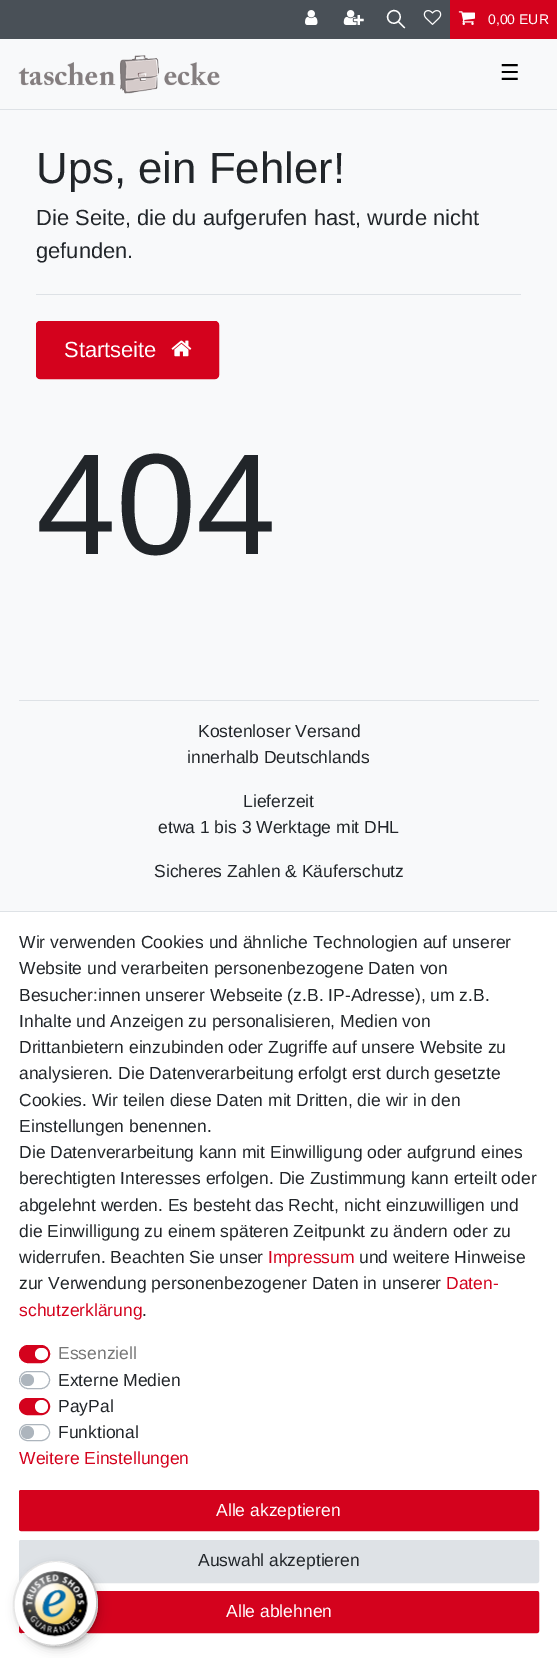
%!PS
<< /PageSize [557 1658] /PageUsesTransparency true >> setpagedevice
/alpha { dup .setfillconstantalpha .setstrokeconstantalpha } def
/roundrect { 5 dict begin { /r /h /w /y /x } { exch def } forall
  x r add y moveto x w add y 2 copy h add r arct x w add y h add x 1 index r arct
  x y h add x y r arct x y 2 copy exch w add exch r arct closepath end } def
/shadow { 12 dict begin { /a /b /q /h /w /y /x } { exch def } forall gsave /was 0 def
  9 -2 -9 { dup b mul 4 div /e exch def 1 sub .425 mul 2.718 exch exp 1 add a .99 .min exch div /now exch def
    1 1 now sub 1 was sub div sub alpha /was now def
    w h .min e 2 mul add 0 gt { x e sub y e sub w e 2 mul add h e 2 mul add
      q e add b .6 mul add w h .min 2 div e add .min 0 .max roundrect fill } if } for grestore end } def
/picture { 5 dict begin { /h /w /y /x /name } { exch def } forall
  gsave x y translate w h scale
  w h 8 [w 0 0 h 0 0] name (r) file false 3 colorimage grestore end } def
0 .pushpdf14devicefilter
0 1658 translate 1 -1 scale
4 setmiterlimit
0.973 0.976 0.98 setrgbcolor
0 0 557 1658 rectfill
0.286 0.314 0.341 setrgbcolor
0 0 450 39 rectfill
(img1.rgb) 305 10 13 15 picture
(img2.rgb) 343 10 21 15 picture
1 setgray
newpath 404 28 moveto 402.5 26.5 391 15.5 391.5 15 curveto 392.5 14.5 lineto 405 27.5 lineto 405.5 28 404.5 28.5 404 28 curveto closepath fill
0.286 0.314 0.341 setrgbcolor
newpath 389 22 moveto 382.5 15.5 392.5 5.5 398.5 12 curveto 405 18.5 395.5 28 389 22 curveto closepath fill
1 setgray
1.3 setlinewidth
newpath 389.5 21.5 moveto 383.5 15.5 392.5 6.5 398.5 12.5 curveto 404 18.5 395.5 27 389.5 21.5 curveto closepath stroke
(img3.rgb) 423 10 19 15 picture
0.831 0.008 0.114 setrgbcolor
450 0 107 39 rectfill
(img4.rgb) 458 11 17 14 picture
/LiberationSans-Regular [14 0 0 -14 0 0] selectfont
1 setgray
488 24 moveto (0,00 EUR) show
0.871 0.886 0.902 setrgbcolor
0 109 557 1 rectfill
(img5.rgb) 18 55 202 39 picture
/DejaVuSans-Regular [21.9 0 0 -21.9 0 0] selectfont
0 setgray
500 80 moveto (☰) show
/LiberationSans-Regular [43.75 0 0 -43.75 0 0] selectfont
0.129 0.145 0.161 setrgbcolor
36 183 moveto (Ups, ein Fehler!) show
/LiberationSans-Regular [21.9 0 0 -21.9 0 0] selectfont
36 225 moveto (Die Seite, die du aufgerufen hast, wurde nicht) show
36 258 moveto (gefunden.) show
0.871 0.886 0.902 setrgbcolor
36 294 485 1 rectfill
0.831 0.008 0.114 setrgbcolor
36.5 321.5 182 57 3.5 roundrect gsave fill grestore
1 setlinewidth
stroke
1 setgray
64 357 moveto (Startseite) show
(img6.rgb) 171 340 21 17 picture
/LiberationSans-Regular [144 0 0 -144 0 0] selectfont
0.129 0.145 0.161 setrgbcolor
36 554 moveto (404) show
0.871 0.886 0.902 setrgbcolor
19 700 520 1 rectfill
/LiberationSans-Regular [17.5 0 0 -17.5 0 0] selectfont
0.129 0.145 0.161 setrgbcolor
198 737 moveto (Kostenloser Versand) show
187 763 moveto (innerhalb Deutschlands) show
243 807 moveto (Lieferzeit) show
158 833 moveto (etwa 1 bis 3 Werktage mit DHL) show
154 877 moveto (Sicheres Zahlen & Käuferschutz) show
1 setgray
0 912 557 746 rectfill
0.871 0.886 0.902 setrgbcolor
0 911 557 1 rectfill
0.129 0.145 0.161 setrgbcolor
19 948 moveto (Wir verwenden Cookies und ähnliche Technologien auf unserer) show
19 974 moveto (Website und verarbeiten personenbezogene Daten von) show
19 1001 moveto (Besucher:innen unserer Webseite \(z.B. IP-Adresse\), um z.B.) show
19 1027 moveto (Inhalte und Anzeigen zu personalisieren, Medien von) show
19 1053 moveto (Drittanbietern einzubinden oder Zugriffe auf unsere Website zu) show
19 1079 moveto (analysieren. Die Datenverarbeitung erfolgt erst durch gesetzte) show
19 1106 moveto (Cookies. Wir teilen diese Daten mit Dritten, die wir in den) show
19 1132 moveto (Einstellungen benennen.) show
19 1158 moveto (Die Datenverarbeitung kann mit Einwilligung oder aufgrund eines) show
19 1184 moveto (berechtigten Interesses erfolgen. Die Zustimmung kann erteilt oder) show
19 1211 moveto (abgelehnt werden. Es besteht das Recht, nicht einzuwilligen und) show
19 1237 moveto (die Einwilligung zu einem späteren Zeitpunkt zu ändern oder zu) show
19 1263 moveto (widerrufen. Beachten Sie unser) show
0.831 0.008 0.114 setrgbcolor
268 1263 moveto (Impressum) show
0.129 0.145 0.161 setrgbcolor
359 1263 moveto (und weitere Hinweise) show
19 1289 moveto (zur Verwendung personenbezogener Daten in unserer) show
0.831 0.008 0.114 setrgbcolor
446 1289 moveto (Daten-) show
19 1316 moveto (schutzerklärung) show
0.129 0.145 0.161 setrgbcolor
142 1316 moveto (.) show
0.831 0.008 0.114 setrgbcolor
19.5 1345.5 30 17 8.5 roundrect gsave fill grestore
stroke
0.463 setgray
58 1359 moveto (Essenziell) show
1 setgray
35 1348 13 12 6 roundrect fill
0.678 0.71 0.741 setrgbcolor
19.5 1371.5 30 17 8.5 roundrect stroke
0.129 0.145 0.161 setrgbcolor
58 1386 moveto (Externe Medien) show
0.678 0.71 0.741 setrgbcolor
21 1374 13 12 6 roundrect fill
0.831 0.008 0.114 setrgbcolor
19.5 1398.5 30 16 8 roundrect gsave fill grestore
stroke
0.129 0.145 0.161 setrgbcolor
58 1412 moveto (PayPal) show
1 setgray
newpath 41.5 1406.5 6.5 0 360 arc closepath fill
0.678 0.71 0.741 setrgbcolor
19.5 1424.5 30 16 8 roundrect stroke
0.129 0.145 0.161 setrgbcolor
58 1438 moveto (Funktional) show
0.678 0.71 0.741 setrgbcolor
newpath 27.5 1432.5 6.5 0 360 arc closepath fill
0.831 0.008 0.114 setrgbcolor
19 1464 moveto (Weitere Einstellungen) show
19.5 1490.5 519 40 1.5 roundrect gsave fill grestore
stroke
1 setgray
216 1516 moveto (Alle akzeptieren) show
0.871 0.886 0.902 setrgbcolor
19.5 1540.5 519 42 1.5 roundrect gsave fill grestore
stroke
0.129 0.145 0.161 setrgbcolor
198 1566 moveto (Auswahl akzeptieren) show
0.831 0.008 0.114 setrgbcolor
19.5 1591.5 519 41 1.5 roundrect gsave fill grestore
stroke
1 setgray
226 1617 moveto (Alle ablehnen) show
0 setgray
16 1565 85 85 42.5 5 0.15 shadow
14 1563 85 85 42.5 1 0.15 shadow
1 setgray
newpath 55.5 1603.5 42.5 0 360 arc closepath fill
0.1 alpha
0 setgray
newpath 56 1562 moveto 71 1562 84 1570 92 1582 curveto 80 1561 52 1555 32 1568 curveto 12 1581 7 1609 21 1628 curveto 4 1601 22 1562 56 1562 curveto closepath fill
0.2 alpha
newpath 34 1640 moveto 69 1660 111 1624 94 1586 curveto 91 1578 84 1570 75 1566 curveto 83 1570 89 1577 93 1586 curveto 108 1623 69 1658 34 1640 curveto closepath fill
0.196 setgray
newpath 55 1646 moveto 98 1647 114 1590 78 1567 curveto 112 1591 97 1645 55 1646 curveto closepath fill
0.3 alpha
1 setgray
newpath 56 1561 moveto 55 1561 lineto 78 1561 97 1580 97 1603 curveto 97 1627 78 1646 55 1646 curveto 63 1646 72 1644 79 1639 curveto 114 1616 97 1561 56 1561 curveto closepath fill
1 alpha
(img7.rgb) 22 1571 66 66 picture
.poppdf14devicefilter showpage
